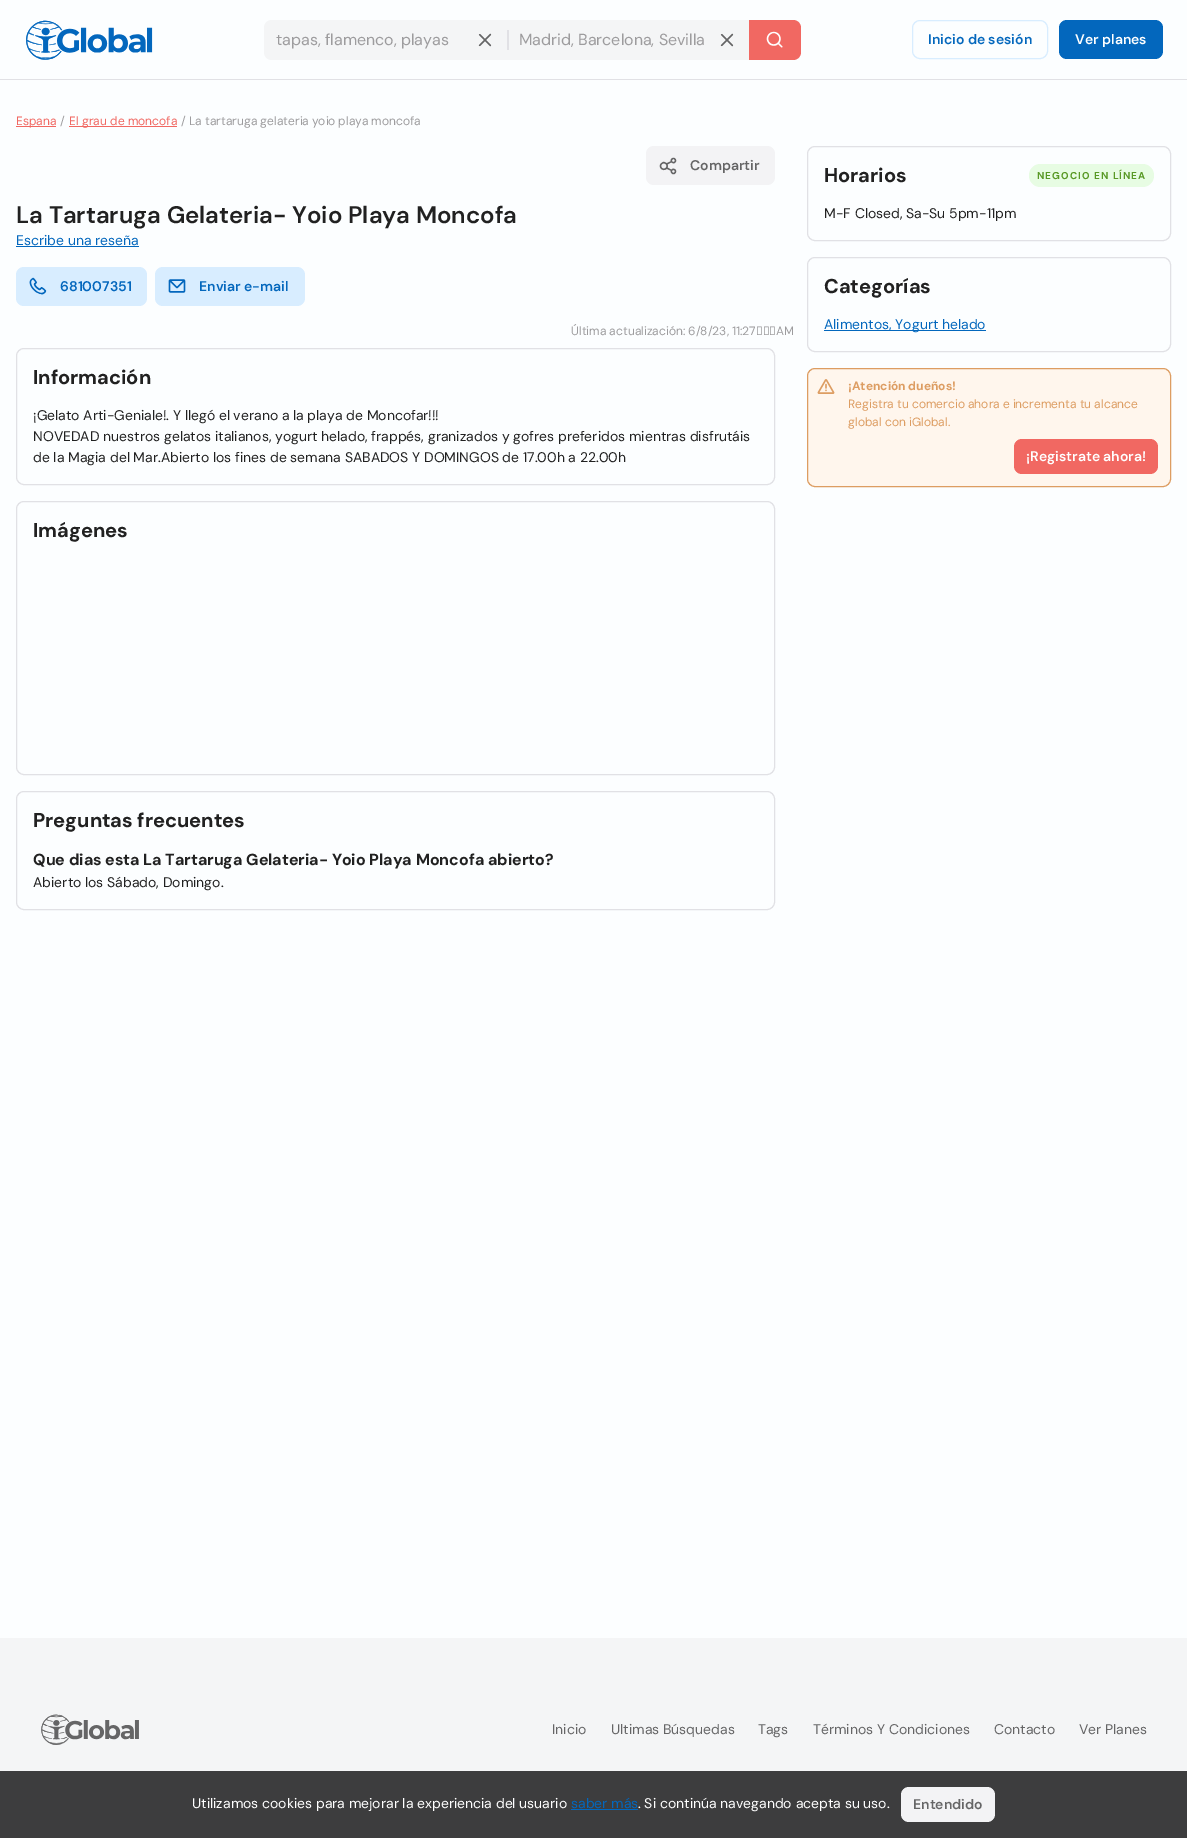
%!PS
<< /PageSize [1187 1838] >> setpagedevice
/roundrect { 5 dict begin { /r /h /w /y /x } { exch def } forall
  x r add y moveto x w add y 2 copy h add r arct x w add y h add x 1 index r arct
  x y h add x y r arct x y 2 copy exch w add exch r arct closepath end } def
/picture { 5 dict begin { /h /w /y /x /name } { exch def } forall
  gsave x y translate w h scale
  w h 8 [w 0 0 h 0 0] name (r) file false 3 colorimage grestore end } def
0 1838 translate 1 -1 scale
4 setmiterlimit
0.988 0.996 1 setrgbcolor
0 0 1187 1838 rectfill
0.882 0.882 0.898 setrgbcolor
0 79 1187 1 rectfill
(img1.rgb) 26 20 127 40 picture
0.957 0.961 0.965 setrgbcolor
newpath 272 20 moveto 507 20 lineto 507 60 lineto 272 60 lineto 267.5 60 264 56.5 264 52 curveto 264 28 lineto 264 23.5 267.5 20 272 20 curveto closepath fill
/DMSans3-Regular [16 0 0 -16 0 0] selectfont
0.616 0.612 0.62 setrgbcolor
276 45 moveto (tapas, flamenco, playas) show
(img2.rgb) 478 33 14 14 picture
0.957 0.961 0.965 setrgbcolor
507 20 242 40 rectfill
0.882 0.882 0.898 setrgbcolor
507 30 2 20 rectfill
0.616 0.612 0.62 setrgbcolor
519 45 moveto (Madrid, Barcelona, Sevilla) show
(img2.rgb) 720 33 14 14 picture
0.945 0.408 0.384 setrgbcolor
newpath 749 20 moveto 793 20 lineto 797.5 20 801 23.5 801 28 curveto 801 52 lineto 801 56.5 797.5 60 793 60 curveto 749 60 lineto closepath fill
(img3.rgb) 766 31 17 17 picture
0.847 0.929 1 setrgbcolor
912.5 20.5 135 38 7.5 roundrect stroke
/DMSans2-SemiBold [14 0 0 -14 0 0] selectfont
0.012 0.404 0.741 setrgbcolor
928 44 moveto (Inicio de sesión) show
1059 20 104 39 8 roundrect fill
1 setgray
1075 44 moveto (Ver planes) show
0.945 0.408 0.384 setrgbcolor
16 126 40 1 rectfill
/DMSans-Regular [12 0 0 -12 0 0] selectfont
16 125 moveto (Espana) show
0.616 0.612 0.62 setrgbcolor
60 125 moveto (/) show
0.945 0.408 0.384 setrgbcolor
69 126 108 1 rectfill
69 125 moveto (El grau de moncofa) show
0.616 0.612 0.62 setrgbcolor
181 125 moveto (/) show
189 125 moveto -0.5 0 32 (La tartaruga gelateria yoio playa moncofa) widthshow
0.953 0.953 0.961 setrgbcolor
646 146 129 39 8 roundrect fill
(img4.rgb) 659 157 18 18 picture
/DMSans2-SemiBold [14 0 0 -14 0 0] selectfont
0.396 0.396 0.4 setrgbcolor
690 170 moveto (Compartir) show
/DMSans-SemiBold [24 0 0 -24 0 0] selectfont
0.129 setgray
16 223 moveto (La Tartaruga Gelateria- Yoio Playa Moncofa) show
/DMSans2-Regular [14 0 0 -14 0 0] selectfont
0.012 0.404 0.741 setrgbcolor
16 245 moveto (Escribe una reseña) show
16 246 123 1 rectfill
0.847 0.929 1 setrgbcolor
16 267 131 39 8 roundrect fill
(img5.rgb) 29 277 18 18 picture
/DMSans2-SemiBold [14 0 0 -14 0 0] selectfont
0.012 0.404 0.741 setrgbcolor
60 291 moveto (681007351) show
0.847 0.929 1 setrgbcolor
155 267 150 39 8 roundrect fill
(img6.rgb) 168 279 18 14 picture
0.012 0.404 0.741 setrgbcolor
199 291 moveto (Enviar e-mail) show
/DMSans-Regular [12 0 0 -12 0 0] selectfont
0.616 0.612 0.62 setrgbcolor
571 335 moveto -0.5 0 32 (Última actualización: 6/8/23, 11:27 AM) widthshow
0.882 0.882 0.898 setrgbcolor
16.5 348.5 758 136 7.5 roundrect stroke
/DMSans2-Bold [20 0 0 -20 0 0] selectfont
0.129 setgray
33 384 moveto (Información) show
/DMSans2-Regular [14 0 0 -14 0 0] selectfont
33 420 moveto (¡Gelato Arti-Geniale!. Y llegó el verano a la playa de Moncofar!!!) show
33 441 moveto (NOVEDAD nuestros gelatos italianos, yogurt helado, frappés, granizados y gofres preferidos mientras disfrutáis) show
33 462 moveto (de la Magia del Mar.Abierto los fines de semana SABADOS Y DOMINGOS de 17.00h a 22.00h) show
0.882 0.882 0.898 setrgbcolor
16.5 501.5 758 273 7.5 roundrect stroke
/DMSans2-Bold [20 0 0 -20 0 0] selectfont
0.129 setgray
33 537 moveto (Imágenes) show
0.882 0.882 0.898 setrgbcolor
16.5 791.5 758 118 7.5 roundrect stroke
0.129 setgray
33 827 moveto (Preguntas frecuentes) show
/DMSans3-Bold [16 0 0 -16 0 0] selectfont
33 865 moveto (Que dias esta La Tartaruga Gelateria- Yoio Playa Moncofa abierto?) show
/DMSans2-Regular [14 0 0 -14 0 0] selectfont
33 887 moveto (Abierto los Sábado, Domingo.) show
0.882 0.882 0.898 setrgbcolor
807.5 146.5 363 94 7.5 roundrect stroke
/DMSans2-Bold [20 0 0 -20 0 0] selectfont
0.129 setgray
824 182 moveto (Horarios) show
0.906 0.988 0.89 setrgbcolor
1029 164 125 23 11.5 roundrect fill
/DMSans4-Bold [10 0 0 -10 0 0] selectfont
0.349 0.6 0.149 setrgbcolor
1037 179 moveto 1 0 (NEGOCIO EN LÍNEA) ashow
/DMSans2-Regular [14 0 0 -14 0 0] selectfont
0.129 setgray
824 218 moveto (M-F Closed, Sa-Su 5pm-11pm) show
0.882 0.882 0.898 setrgbcolor
807.5 257.5 363 94 7.5 roundrect stroke
/DMSans2-Bold [20 0 0 -20 0 0] selectfont
0.129 setgray
824 293 moveto (Categorías) show
0.012 0.404 0.741 setrgbcolor
824 330 162 1 rectfill
/DMSans2-Regular [14 0 0 -14 0 0] selectfont
824 329 moveto (Alimentos, Yogurt helado) show
1 0.965 0.929 setrgbcolor
807.5 368.5 363 118 7.5 roundrect gsave fill grestore
0.867 0.616 0.384 setrgbcolor
stroke
(img7.rgb) 817 379 18 15 picture
/DMSans-Bold [12 0 0 -12 0 0] selectfont
848 390 moveto (¡Atención dueños!) show
/DMSans-Regular [12 0 0 -12 0 0] selectfont
848 408 moveto -0.25 0 32 (Registra tu comercio ahora e incrementa tu alcance) widthshow
848 426 moveto (global con iGlobal.) show
0.945 0.408 0.384 setrgbcolor
1014 439 144 35 8 roundrect fill
/DMSans2-SemiBold [14 0 0 -14 0 0] selectfont
1 setgray
1026 461 moveto (¡Registrate ahora!) show
0.957 0.961 0.965 setrgbcolor
0 1638 1187 133 rectfill
0.239 0.239 0.243 setrgbcolor
0 1771 1187 67 rectfill
(img8.rgb) 41 1714 98 31 picture
/DMSans2-Regular [14 0 0 -14 0 0] selectfont
0.396 0.396 0.4 setrgbcolor
552 1734 moveto (Inicio) show
611 1734 moveto (Ultimas Búsquedas) show
758 1734 moveto (Tags) show
813 1734 moveto (Términos Y Condiciones) show
994 1734 moveto (Contacto) show
1079 1734 moveto (Ver Planes) show
1 setgray
192 1808 moveto (Utilizamos cookies para mejorar la experiencia del usuario) show
0.012 0.404 0.741 setrgbcolor
571 1808 moveto (saber más) show
571 1809 67 1 rectfill
1 setgray
638 1808 moveto (. Si continúa navegando acepta su uso.) show
0.953 0.953 0.961 setrgbcolor
901 1787 94 35 8 roundrect fill
/DMSans2-SemiBold [14 0 0 -14 0 0] selectfont
0.396 0.396 0.4 setrgbcolor
913 1809 moveto (Entendido) show
showpage
